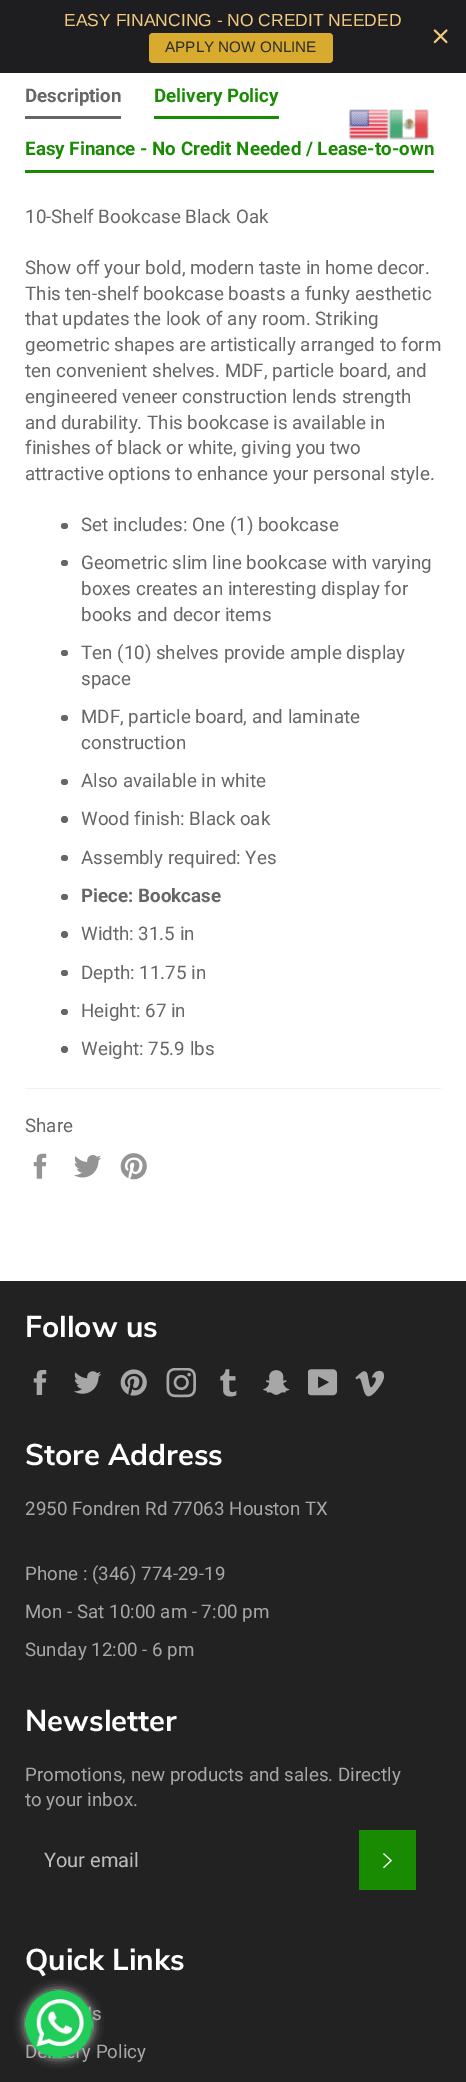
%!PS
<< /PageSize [466 2082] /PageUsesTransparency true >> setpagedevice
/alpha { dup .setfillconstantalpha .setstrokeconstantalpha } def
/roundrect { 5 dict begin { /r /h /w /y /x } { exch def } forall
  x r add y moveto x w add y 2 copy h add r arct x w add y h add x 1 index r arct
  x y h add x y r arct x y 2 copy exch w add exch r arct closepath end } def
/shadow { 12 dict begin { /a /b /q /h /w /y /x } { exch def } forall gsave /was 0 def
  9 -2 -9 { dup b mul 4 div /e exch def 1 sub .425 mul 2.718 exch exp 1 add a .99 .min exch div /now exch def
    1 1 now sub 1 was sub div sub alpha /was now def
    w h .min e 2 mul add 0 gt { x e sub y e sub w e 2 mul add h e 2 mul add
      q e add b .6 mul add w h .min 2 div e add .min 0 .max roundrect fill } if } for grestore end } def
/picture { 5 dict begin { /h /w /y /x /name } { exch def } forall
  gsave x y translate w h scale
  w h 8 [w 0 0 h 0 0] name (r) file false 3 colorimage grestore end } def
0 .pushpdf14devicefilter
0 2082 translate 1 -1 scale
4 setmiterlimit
1 setgray
0 0 466 2082 rectfill
0.118 0.118 0.125 setrgbcolor
0 0 466 73 rectfill
/LiberationSans-Regular [17.5 0 0 -17.5 0 0] selectfont
0.949 0.792 0.502 setrgbcolor
64 26 moveto (EASY FINANCING - NO CREDIT NEEDED) show
0.847 0.671 0.18 setrgbcolor
149 33 184 30 4 roundrect fill
/LiberationSans-Regular [15.25 0 0 -15.25 0 0] selectfont
0.165 0.173 0.169 setrgbcolor
165 52 moveto (APPLY NOW ONLINE) show
(img1.rgb) 433 29 15 15 picture
0.4 setgray
25 116 96 3 rectfill
/Roboto-Bold [18.75 0 0 -18.75 0 0] selectfont
25 102 moveto (Description) show
0.098 0.545 0.012 setrgbcolor
154 116 125 3 rectfill
154 102 moveto (Delivery Policy) show
25 170 409 3 rectfill
25 155 moveto (Easy Finance - No Credit Needed / Lease-to-own) show
/Roboto-Regular [18.75 0 0 -18.75 0 0] selectfont
0.4 setgray
25 223 moveto (10-Shelf Bookcase Black Oak) show
25 274 moveto (Show off your bold, modern taste in home decor.) show
25 300 moveto (This ten-shelf bookcase boasts a funky aesthetic) show
25 325 moveto (that updates the look of any room. Striking) show
25 351 moveto (geometric shapes are artistically arranged to form) show
25 377 moveto (ten convenient shelves. MDF, particle board, and) show
25 403 moveto (engineered veneer construction lends strength) show
25 429 moveto (and durability. This bookcase is available in) show
25 454 moveto (finishes of black or white, giving you two) show
25 480 moveto (attractive options to enhance your personal style.) show
61 523 7 6 3 roundrect fill
81 531 moveto (Set includes: One \(1\) bookcase) show
61 560 7 6 3 roundrect fill
81 569 moveto (Geometric slim line bookcase with varying) show
81 595 moveto (boxes creates an interesting display for) show
81 621 moveto (books and decor items) show
61 650 7 6 3 roundrect fill
81 659 moveto (Ten \(10\) shelves provide ample display) show
81 685 moveto (space) show
61 715 7 6 3 roundrect fill
81 723 moveto (MDF, particle board, and laminate) show
81 749 moveto (construction) show
61 779 7 6 3 roundrect fill
81 787 moveto (Also available in white) show
newpath 64.5 819.5 3.5 0 360 arc closepath fill
81 825 moveto (Wood finish: Black oak) show
61 855 7 6 3 roundrect fill
81 864 moveto (Assembly required: Yes) show
61 894 7 6 3 roundrect fill
/Roboto-Bold [18.75 0 0 -18.75 0 0] selectfont
81 902 moveto (Piece: Bookcase) show
newpath 64.5 934.5 3.5 0 360 arc closepath fill
/Roboto-Regular [18.75 0 0 -18.75 0 0] selectfont
81 940 moveto (Width: 31.5 in) show
61 970 7 6 3 roundrect fill
81 979 moveto (Depth: 11.75 in) show
61 1009 7 6 3 roundrect fill
81 1017 moveto (Height: 67 in) show
newpath 64.5 1049.5 3.5 0 360 arc closepath fill
81 1055 moveto (Weight: 75.9 lbs) show
0.941 setgray
25 1088 416 1 rectfill
0.4 setgray
25 1132 moveto (Share) show
(img2.rgb) 33 1153 14 26 picture
(img3.rgb) 74 1155 28 23 picture
(img4.rgb) 120 1153 27 27 picture
0.133 setgray
0 1281 466 801 rectfill
/NunitoSans-Bold [30 0 0 -30 0 0] selectfont
1 setgray
25 1337 moveto (Follow us) show
(img5.rgb) 33 1370 14 25 picture
(img6.rgb) 74 1371 28 23 picture
(img7.rgb) 120 1369 27 27 picture
(img8.rgb) 166 1368 30 30 picture
(img9.rgb) 220 1369 17 28 picture
(img10.rgb) 263 1370 27 25 picture
(img11.rgb) 308 1369 30 27 picture
(img12.rgb) 355 1370 29 27 picture
25 1465 moveto (Store Address) show
/Roboto-Regular [18.75 0 0 -18.75 0 0] selectfont
0.655 setgray
25 1515 moveto (2950 Fondren Rd 77063 Houston TX) show
25 1580 moveto (Phone : \(346\) 774-29-19) show
25 1618 moveto (Mon - Sat 10:00 am - 7:00 pm) show
25 1656 moveto (Sunday 12:00 - 6 pm) show
/NunitoSans-Bold [30 0 0 -30 0 0] selectfont
1 setgray
25 1731 moveto (Newsletter) show
/Roboto-Regular [18.75 0 0 -18.75 0 0] selectfont
0.655 setgray
25 1781 moveto (Promotions, new products and sales. Directly) show
25 1806 moveto (to your inbox.) show
/Roboto-Regular [20 0 0 -20 0 0] selectfont
0.741 setgray
44 1867 moveto (Your email) show
0.098 0.545 0.012 setrgbcolor
359 1830 57 60 rectfill
(img13.rgb) 383 1853 9 16 picture
/NunitoSans-Bold [30 0 0 -30 0 0] selectfont
1 setgray
25 1970 moveto (Quick Links) show
/Roboto-Regular [18.75 0 0 -18.75 0 0] selectfont
0.655 setgray
92 2020 moveto (s) show
25 2058 moveto (D) show
82 2058 moveto (y Policy) show
(img14.rgb) 348 109 41 31 picture
(img15.rgb) 388 109 41 31 picture
0.761 setgray
25 1990 68 68 34 5 1 shadow
(img16.rgb) 25 1990 68 68 picture
.poppdf14devicefilter showpage
